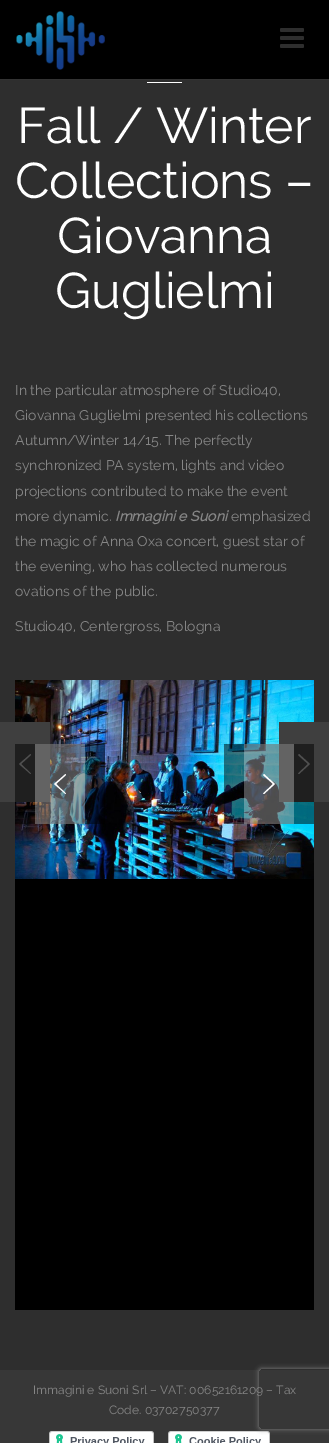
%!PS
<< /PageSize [329 1443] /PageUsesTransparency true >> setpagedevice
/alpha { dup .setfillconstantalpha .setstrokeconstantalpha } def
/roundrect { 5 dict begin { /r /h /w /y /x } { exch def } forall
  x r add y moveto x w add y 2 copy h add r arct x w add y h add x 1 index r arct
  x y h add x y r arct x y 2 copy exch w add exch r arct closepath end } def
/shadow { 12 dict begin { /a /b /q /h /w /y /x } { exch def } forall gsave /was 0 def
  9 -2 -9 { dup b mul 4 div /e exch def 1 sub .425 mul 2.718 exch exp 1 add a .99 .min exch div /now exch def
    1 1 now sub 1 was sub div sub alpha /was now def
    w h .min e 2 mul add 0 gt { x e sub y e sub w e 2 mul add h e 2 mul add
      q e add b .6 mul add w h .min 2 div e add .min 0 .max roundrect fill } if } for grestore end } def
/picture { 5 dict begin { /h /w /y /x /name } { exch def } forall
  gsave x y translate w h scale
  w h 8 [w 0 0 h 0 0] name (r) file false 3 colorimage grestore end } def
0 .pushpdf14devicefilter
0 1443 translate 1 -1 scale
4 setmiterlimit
0.18 setgray
0 0 329 1443 rectfill
0 setgray
0 0 329 79 rectfill
0.2 setgray
0 79 329 1 rectfill
(img1.rgb) 16 11 89 59 picture
(img2.rgb) 280 28 24 20 picture
1 setgray
147 82 35 1 rectfill
/Raleway-Regular [50 0 0 -50 0 0] selectfont
17 143 moveto (Fall / Winter) show
15 198 moveto (Collections –) show
57 253 moveto (Giovanna) show
55 308 moveto (Guglielmi) show
/Raleway-Regular [14 0 0 -14 0 0] selectfont
0.525 setgray
15 395 moveto 0.05 0 (In the particular atmosphere of Studio40,) ashow
15 420 moveto 0.05 0 (Giovanna Guglielmi presented his collections) ashow
15 445 moveto 0.05 0 (Autumn/Winter 14/15. The perfectly) ashow
15 470 moveto 0.05 0 (synchronized PA system, lights and video) ashow
15 496 moveto 0.05 0 (projections contributed to make the event) ashow
15 521 moveto 0.05 0 (more dynamic.) ashow
/Raleway-BoldItalic [14 0 0 -14 0 0] selectfont
115 521 moveto 0.05 0 (Immagini e Suoni) ashow
/Raleway-Regular [14 0 0 -14 0 0] selectfont
231 521 moveto 0.05 0 (emphasized) ashow
15 546 moveto 0.05 0 (the magic of Anna Oxa concert, guest star of) ashow
15 571 moveto 0.05 0 (the evening, who has collected numerous) ashow
15 596 moveto 0.05 0 (ovations of the public.) ashow
15 631 moveto 0.05 0 (Studio40, Centergross, Bologna) ashow
0 setgray
15 879 299 431 rectfill
(img3.rgb) 15 680 299 199 picture
0.247 setgray
0 722 50 80 rectfill
0.627 setgray
newpath 19 764 moveto 30.5 754 lineto 31 755 lineto 21 764 lineto 31 773.5 lineto 30.5 774 lineto closepath fill
0.5 alpha
0 setgray
15 744 90 80 rectfill
0.3 alpha
1 setgray
35 744 50 80 rectfill
1 alpha
newpath 54 784 moveto 65.5 774 lineto 66 775 lineto 56 784 lineto 66 793.5 lineto 65.5 794 lineto closepath fill
0.247 setgray
279 722 50 80 rectfill
0.627 setgray
newpath 299 774 moveto 298 773.5 lineto 308 764 lineto 298 755 lineto 299 754 lineto 310 764 lineto closepath fill
0.5 alpha
0 setgray
224 744 90 80 rectfill
0.3 alpha
1 setgray
244 744 50 80 rectfill
1 alpha
newpath 264 794 moveto 263 793.5 lineto 273 784 lineto 263 775 lineto 264 774 lineto 275 784 lineto closepath fill
0.216 setgray
0 1370 329 73 rectfill
(img5.rgb) 168 1431 102 12 picture
gsave
newpath 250 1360 moveto 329 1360 lineto 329 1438 lineto 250 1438 lineto closepath 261 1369 moveto 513 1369 lineto 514 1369 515 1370 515 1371 curveto 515 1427 lineto 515 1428 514 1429 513 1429 curveto 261 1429 lineto 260 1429 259 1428 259 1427 curveto 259 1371 lineto 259 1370 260 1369 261 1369 curveto closepath eoclip newpath
0.502 setgray
259 1369 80 60 2 2.5 1 shadow
grestore
/Raleway-Regular [12 0 0 -12 0 0] selectfont
0.525 setgray
33 1394 moveto 0.05 0 (Immagini e Suoni Srl – VAT: 00652161209 – Tax) ashow
109 1414 moveto 0.05 0 (Code. 03702750377) ashow
(img4.rgb) 49 1431 105 12 picture
.poppdf14devicefilter showpage
